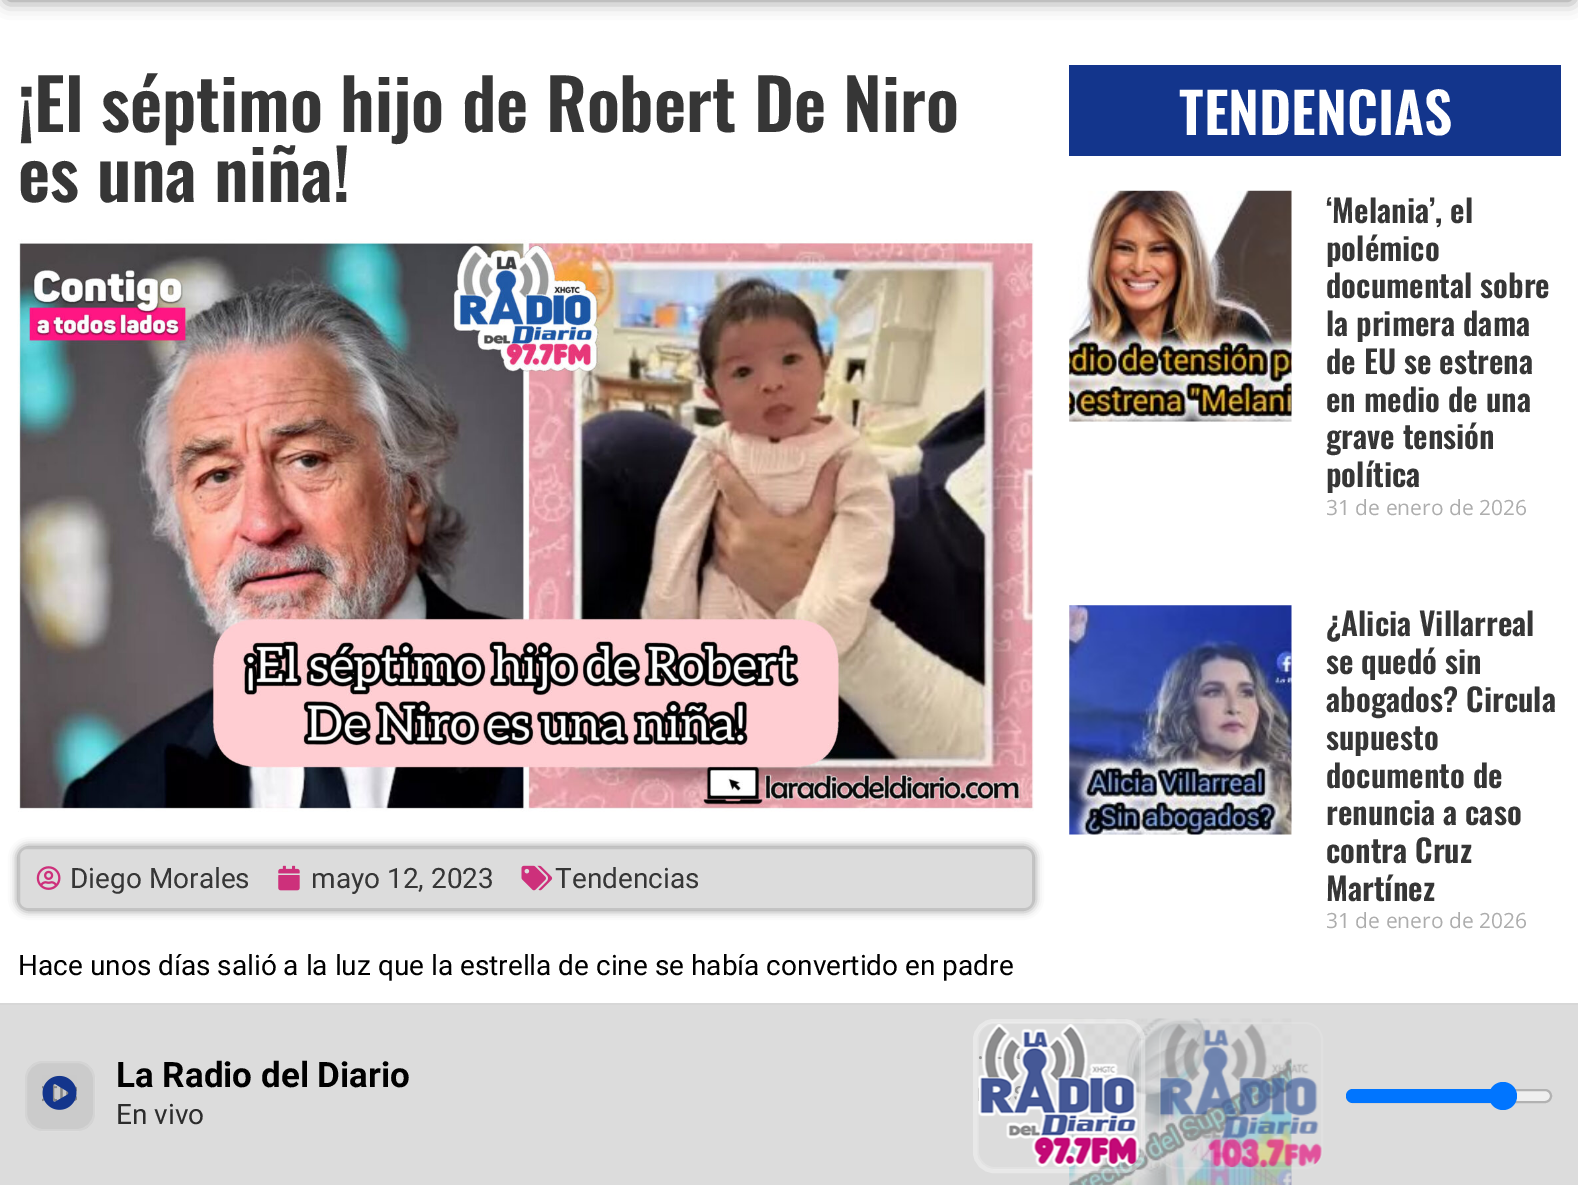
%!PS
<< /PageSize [1578 1185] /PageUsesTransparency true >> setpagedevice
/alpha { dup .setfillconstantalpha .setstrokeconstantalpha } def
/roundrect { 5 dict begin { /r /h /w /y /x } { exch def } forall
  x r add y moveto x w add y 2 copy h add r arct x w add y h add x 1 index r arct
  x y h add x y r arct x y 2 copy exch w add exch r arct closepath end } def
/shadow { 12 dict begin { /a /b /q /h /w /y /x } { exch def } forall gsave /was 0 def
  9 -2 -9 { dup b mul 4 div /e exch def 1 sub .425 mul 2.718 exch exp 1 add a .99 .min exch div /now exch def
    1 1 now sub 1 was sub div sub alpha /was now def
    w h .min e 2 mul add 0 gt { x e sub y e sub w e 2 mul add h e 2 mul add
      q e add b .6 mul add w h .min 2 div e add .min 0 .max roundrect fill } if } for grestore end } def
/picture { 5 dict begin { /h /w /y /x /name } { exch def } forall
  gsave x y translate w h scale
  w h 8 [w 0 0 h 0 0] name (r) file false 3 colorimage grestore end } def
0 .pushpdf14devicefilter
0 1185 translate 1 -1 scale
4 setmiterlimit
1 setgray
0 0 1578 1185 rectfill
0 setgray
7 -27 1565 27 0 9 0.5 shadow
/Oswald-SemiBold [70 0 0 -70 0 0] selectfont
0.212 setgray
18 132 moveto (¡El séptimo hijo de Robert De Niro) show
18 202 moveto (es una niña!) show
(img1.rgb) 17 239 1017 573 picture
0 setgray
18 847 1016 63 9 4.5 0.5 shadow
0.863 setgray
19 848 1014 61 8 roundrect gsave fill grestore
0.765 setgray
2 setlinewidth
stroke
(img2.rgb) 36 866 25 24 picture
/Roboto-Regular [28 0 0 -28 0 0] selectfont
0.212 setgray
70 888 moveto (Diego Morales) show
(img3.rgb) 278 865 22 26 picture
311 888 moveto (mayo 12, 2023) show
(img4.rgb) 521 865 32 26 picture
555 888 moveto (Tendencias) show
0 setgray
18 975 moveto (Hace unos días salió a la luz que la estrella de cine se había convertido en padre) show
0.075 0.208 0.549 setrgbcolor
1069 65 492 91 rectfill
/Oswald-SemiBold [56 0 0 -56 0 0] selectfont
1 setgray
1179 135 moveto (TENDENCIAS) show
(img5.rgb) 1069 190 223 232 picture
/Oswald-SemiBold [31.5 0 0 -31.5 0 0] selectfont
0.212 setgray
1326 223 moveto (‘Melania’, el) show
1326 261 moveto (polémico) show
1326 298 moveto (documental sobre) show
1326 336 moveto (la primera dama) show
1326 374 moveto (de EU se estrena) show
1326 412 moveto (en medio de una) show
1326 449 moveto (grave tensión) show
1326 487 moveto (política) show
/OpenSans-Regular [21 0 0 -21 0 0] selectfont
0.678 setgray
1326 515 moveto (31 de enero de 2026) show
(img6.rgb) 1069 605 223 230 picture
/Oswald-SemiBold [31.5 0 0 -31.5 0 0] selectfont
0.212 setgray
1326 636 moveto (¿Alicia Villarreal) show
1326 674 moveto (se quedó sin) show
1326 712 moveto (abogados? Circula) show
1326 750 moveto (supuesto) show
1326 788 moveto (documento de) show
1326 825 moveto (renuncia a caso) show
1326 863 moveto (contra Cruz) show
1326 901 moveto (Martínez) show
/OpenSans-Regular [21 0 0 -21 0 0] selectfont
0.678 setgray
1326 928 moveto (31 de enero de 2026) show
(img7.rgb) 1069 1018 223 167 picture
0.7 alpha
0.804 setgray
0 1005 1578 180 rectfill
1 alpha
0.843 setgray
0 1003 1578 2 rectfill
0.08 alpha
0 setgray
25 1061 70 70 18 roundrect fill
0.18 alpha
1 setgray
26 1062 68 68 17 roundrect stroke
1 alpha
(img8.rgb) 42 1075 35 35 picture
/Roboto-Bold [35 0 0 -35 0 0] selectfont
0 setgray
116 1087 moveto (La Radio del Diario) show
/Roboto-Regular [28 0 0 -28 0 0] selectfont
0.173 setgray
116 1124 moveto (En vivo) show
0.18 alpha
1 setgray
978 1023 162 145 17 roundrect stroke
1 alpha
(img9.rgb) 978 1024 162 143 picture
0.35 alpha
4 setlinewidth
975 1021 168 150 19 roundrect stroke
0.12 alpha
2 setlinewidth
1160 1023 162 145 17 roundrect stroke
1 alpha
(img10.rgb) 1160 1024 162 144 picture
0.937 setgray
1347 1090 204 12 6 roundrect gsave fill grestore
0.698 setgray
stroke
0 0.459 1 setrgbcolor
newpath 1353 1089 moveto 1503 1089 lineto 1503 1103 lineto 1353 1103 lineto 1349 1103 1346 1100 1346 1096 curveto 1346 1092 1349 1089 1353 1089 curveto closepath fill
newpath 1503 1096 14 0 360 arc closepath fill
.poppdf14devicefilter showpage
